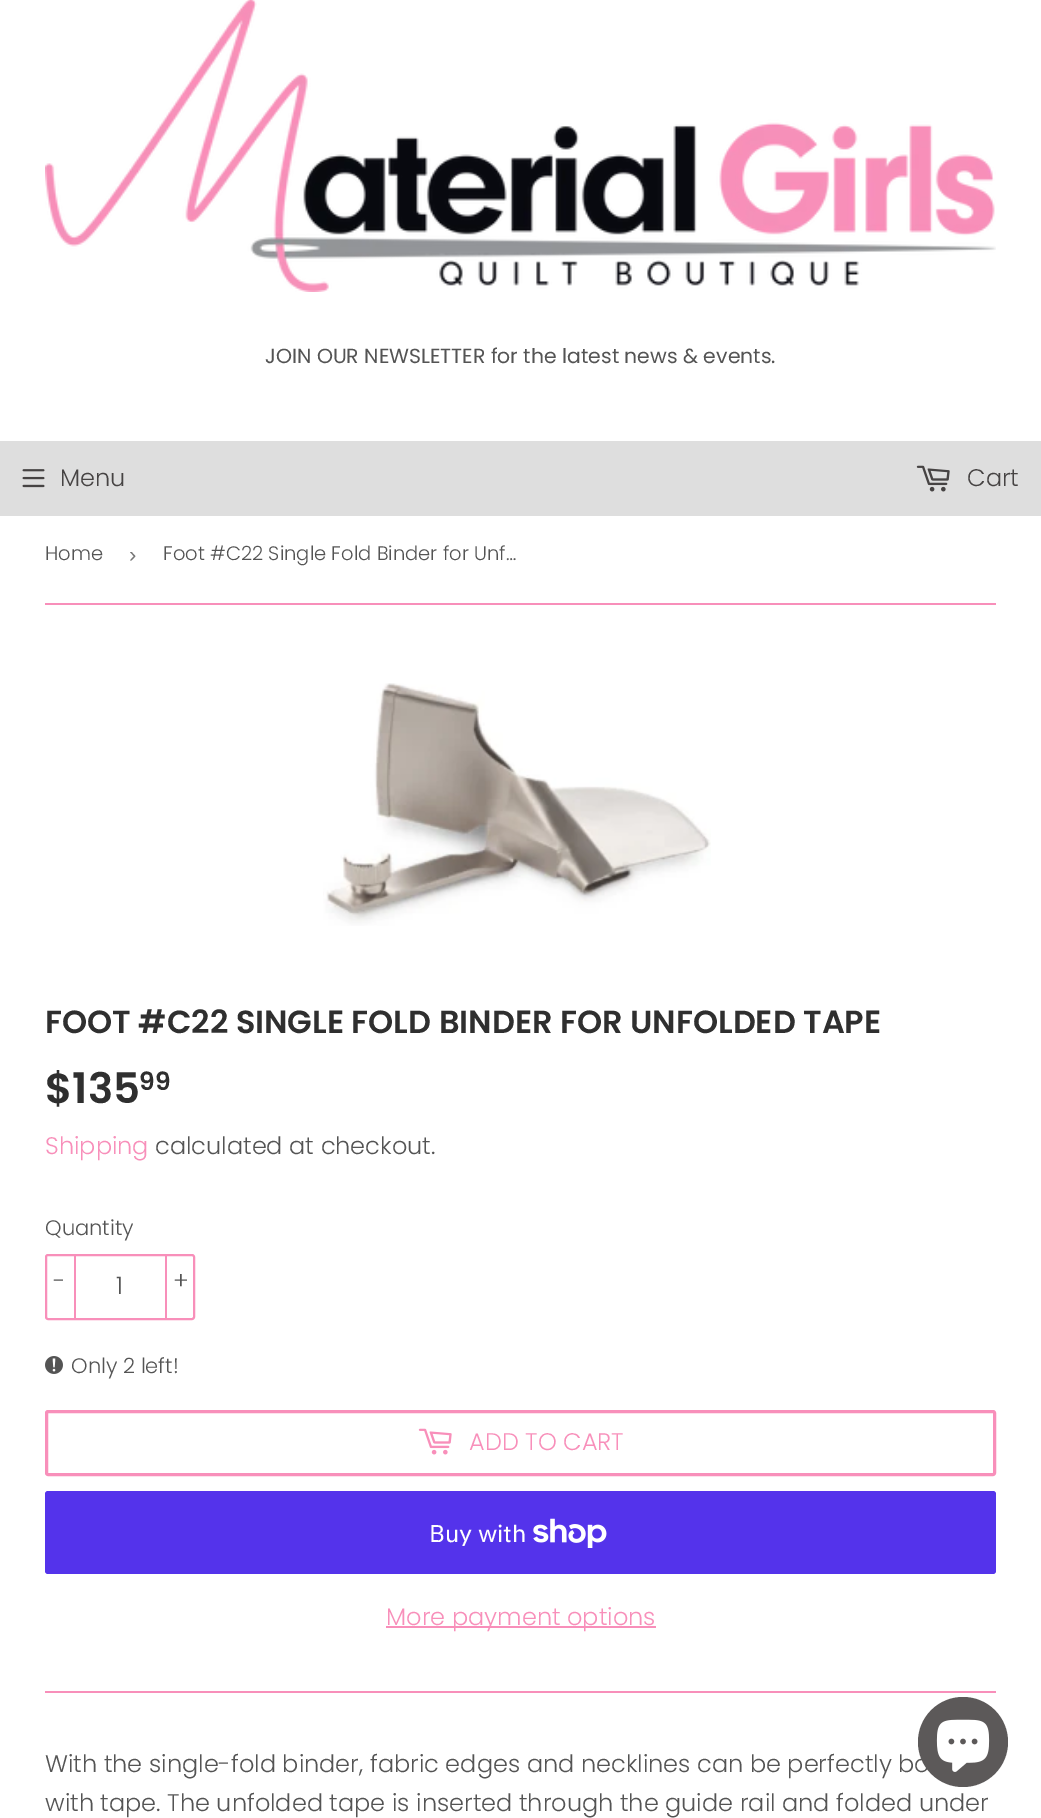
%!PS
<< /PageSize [1041 1818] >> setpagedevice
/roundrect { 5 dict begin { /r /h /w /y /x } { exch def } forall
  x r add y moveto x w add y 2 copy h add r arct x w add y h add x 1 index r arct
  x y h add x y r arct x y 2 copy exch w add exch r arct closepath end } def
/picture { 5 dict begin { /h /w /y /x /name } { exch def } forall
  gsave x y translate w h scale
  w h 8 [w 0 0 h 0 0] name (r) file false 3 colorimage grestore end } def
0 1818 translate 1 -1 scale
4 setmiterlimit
1 setgray
0 0 1041 1818 rectfill
(img1.rgb) 45 0 951 292 picture
/Poppins-Regular [20.4 0 0 -20.4 0 0] selectfont
0.329 setgray
265 363 moveto (JOIN OUR NEWSLETTER for the latest news & events.) show
0.871 setgray
0 441 1041 75 rectfill
(img2.rgb) 22 469 23 19 picture
/Poppins-Light [24 0 0 -24 0 0] selectfont
0.275 0.263 0.263 setrgbcolor
60 486 moveto (Menu) show
(img3.rgb) 916 465 34 27 picture
967 486 moveto (Cart) show
0.973 0.561 0.729 setrgbcolor
45 603 951 2 rectfill
/Poppins-Light [19.5 0 0 -19.5 0 0] selectfont
0.329 setgray
45 560 moveto (Home) show
/LiberationSans-Regular [22 0 0 -22 0 0] selectfont
0.463 setgray
129 562 moveto (›) show
/Poppins-Light [19.5 0 0 -19.5 0 0] selectfont
0.329 setgray
163 560 moveto (Foot #C22 Single Fold Binder for Unf…) show
(img4.rgb) 323 683 388 243 picture
/Poppins-SemiBold [32 0 0 -32 0 0] selectfont
0.184 setgray
45 1033 moveto (FOOT #C22 SINGLE FOLD BINDER FOR UNFOLDED TAPE) show
/Poppins-SemiBold [42 0 0 -42 0 0] selectfont
45 1103 moveto ($135) show
/Poppins-SemiBold [25 0 0 -25 0 0] selectfont
139 1090 moveto (99) show
/Poppins-Light [24 0 0 -24 0 0] selectfont
0.973 0.561 0.729 setrgbcolor
45 1154 moveto (Shipping) show
0.329 setgray
155 1154 moveto (calculated at checkout.) show
/Poppins-Light [21 0 0 -21 0 0] selectfont
45 1235 moveto (Quantity) show
0.973 0.561 0.729 setrgbcolor
2 setlinewidth
46 1255 148 64 2 roundrect stroke
74 1254 2 66 rectfill
/Poppins-Light [24 0 0 -24 0 0] selectfont
0.329 setgray
53 1289 moveto (-) show
116 1294 moveto (1) show
0.973 0.561 0.729 setrgbcolor
165 1254 2 66 rectfill
0.329 setgray
173 1289 moveto (+) show
(img5.rgb) 45 1356 18 18 picture
/Poppins-Light [21 0 0 -21 0 0] selectfont
71 1373 moveto (Only 2 left!) show
0.973 0.561 0.729 setrgbcolor
3 setlinewidth
46.5 1411.5 948 63 1.5 roundrect stroke
(img6.rgb) 418 1428 34 27 picture
/Poppins-Light [24 0 0 -24 0 0] selectfont
469 1450 moveto (ADD TO CART) show
0.329 0.2 0.922 setrgbcolor
45 1491 951 83 3 roundrect fill
/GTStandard-Regular [24 0 0 -24 0 0] selectfont
1 setgray
429 1542 moveto (Buy with) show
(img7.rgb) 533 1518 74 30 picture
0.973 0.561 0.729 setrgbcolor
386 1626 270 2 rectfill
/Poppins-Light [24 0 0 -24 0 0] selectfont
386 1625 moveto (More payment options) show
45 1691 951 2 rectfill
0.329 setgray
45 1772 moveto (With the single-fold binder, fabric edges and necklines can be perfectly bo) show
45 1811 moveto (with tape. The unfolded tape is inserted through the guide rail and folded under) show
0.361 0.349 0.349 setrgbcolor
newpath 963 1742 45 0 360 arc closepath fill
(img8.rgb) 936 1719 54 53 picture
showpage
